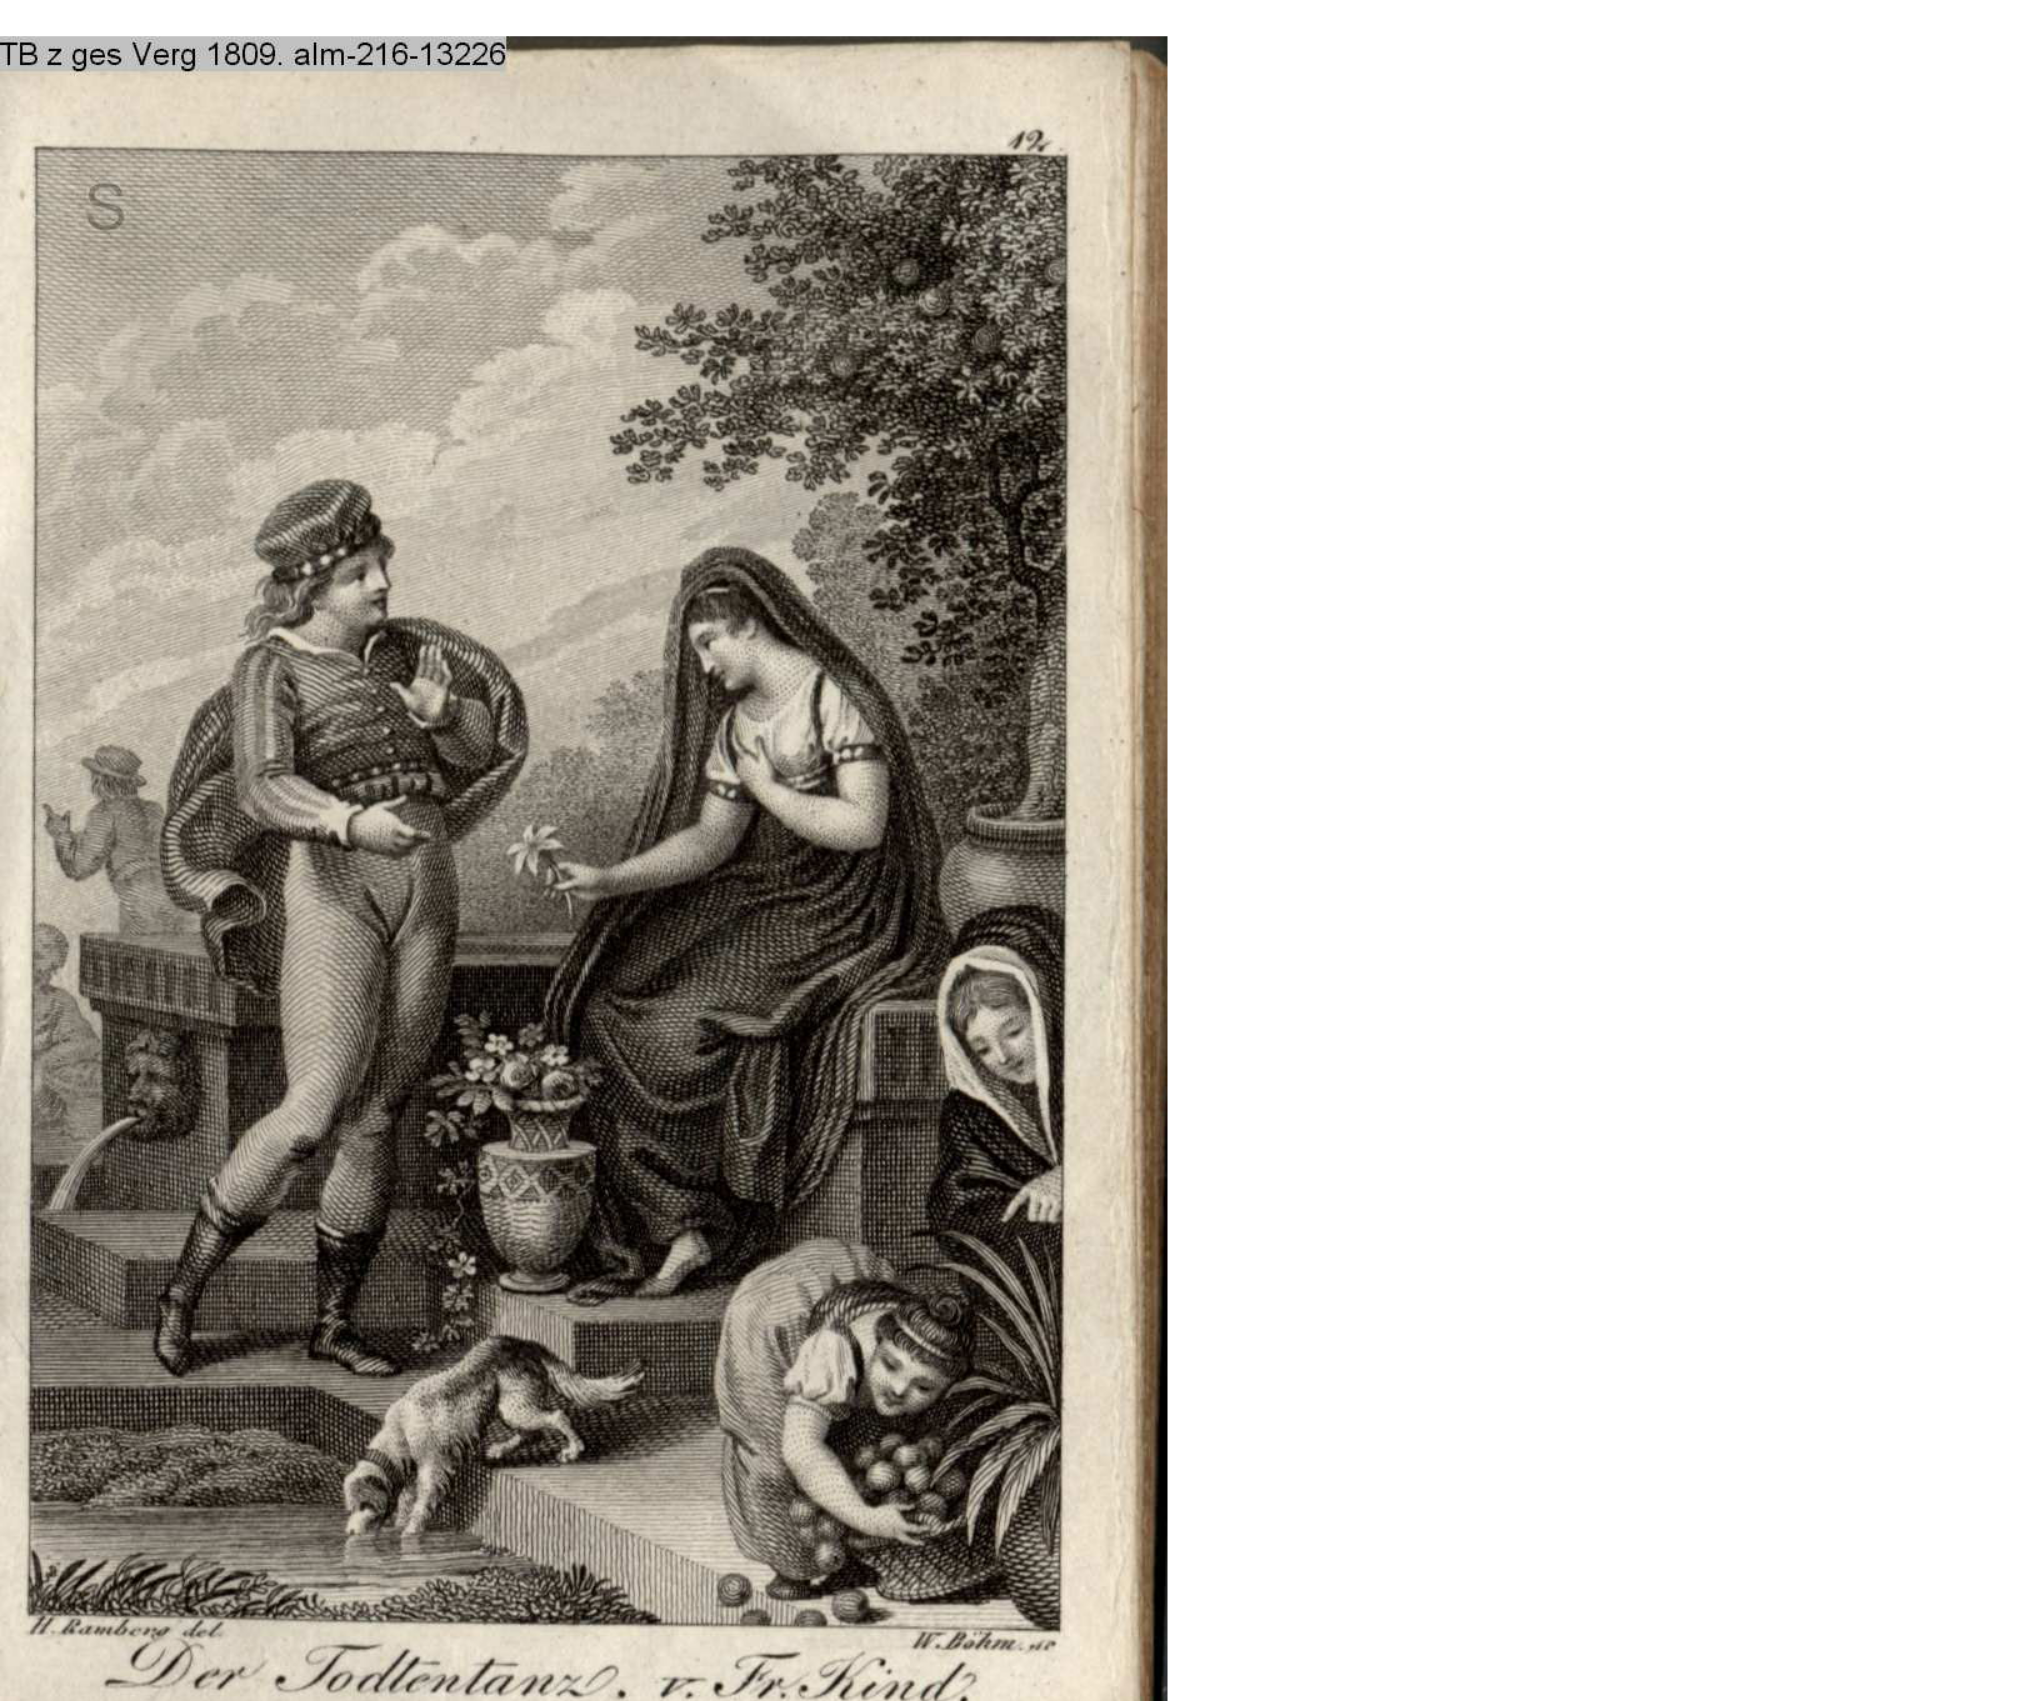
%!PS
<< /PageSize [2026 1701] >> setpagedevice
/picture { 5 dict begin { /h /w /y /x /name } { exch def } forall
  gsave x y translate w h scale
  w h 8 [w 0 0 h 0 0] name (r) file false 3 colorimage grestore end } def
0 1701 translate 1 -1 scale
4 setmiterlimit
1 setgray
0 0 2026 1701 rectfill
(img1.rgb) 0 36 1168 1665 picture
showpage
